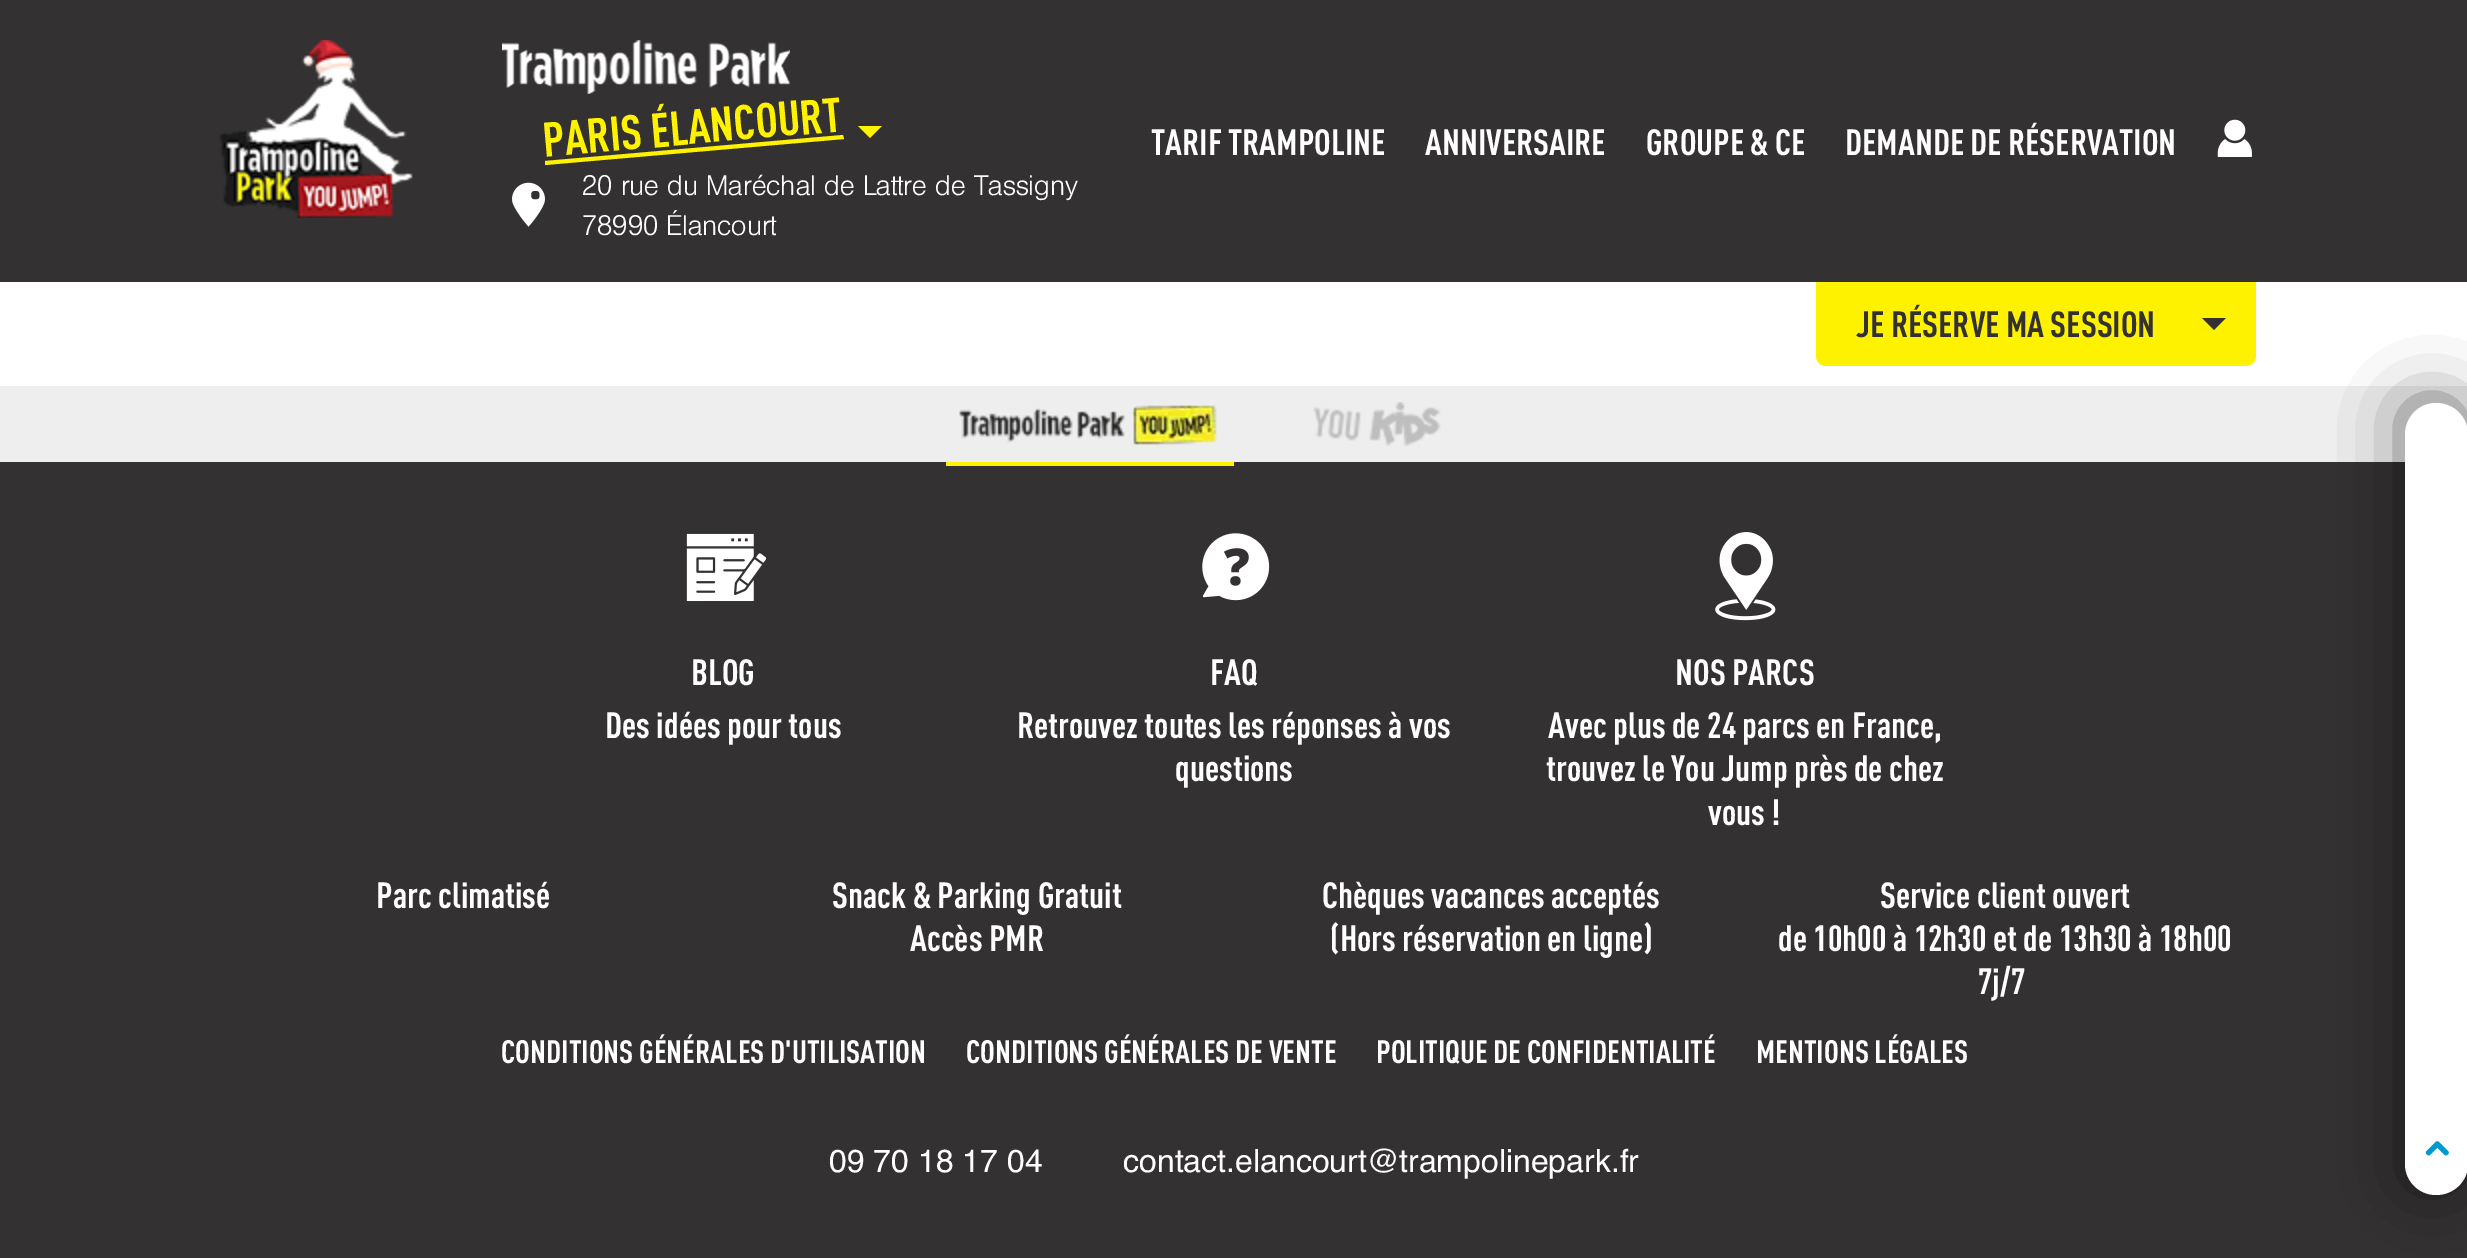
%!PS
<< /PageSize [2467 1258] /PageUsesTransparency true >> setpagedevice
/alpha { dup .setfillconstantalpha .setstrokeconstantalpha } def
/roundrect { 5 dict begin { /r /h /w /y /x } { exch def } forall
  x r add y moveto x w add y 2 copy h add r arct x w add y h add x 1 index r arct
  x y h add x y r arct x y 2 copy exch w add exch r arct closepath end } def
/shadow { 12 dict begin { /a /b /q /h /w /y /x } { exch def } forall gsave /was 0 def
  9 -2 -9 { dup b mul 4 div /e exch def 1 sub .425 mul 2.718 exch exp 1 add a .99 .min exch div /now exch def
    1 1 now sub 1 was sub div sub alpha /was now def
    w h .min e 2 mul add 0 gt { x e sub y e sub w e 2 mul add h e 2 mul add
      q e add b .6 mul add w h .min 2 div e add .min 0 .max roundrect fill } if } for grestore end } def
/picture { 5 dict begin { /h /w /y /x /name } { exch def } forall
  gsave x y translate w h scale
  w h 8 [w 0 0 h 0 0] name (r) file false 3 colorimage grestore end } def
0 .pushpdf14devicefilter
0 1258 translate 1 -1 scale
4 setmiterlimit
1 setgray
0 0 2467 1258 rectfill
0.2 0.192 0.196 setrgbcolor
0 0 2467 282 rectfill
(img1.rgb) 219 40 194 178 picture
(img2.rgb) 502 40 288 54 picture
1 0.949 0 setrgbcolor
newpath 545 161 moveto 843 135 lineto 844 139 lineto 545 165 lineto closepath fill
/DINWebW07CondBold-Bold [48 0 0 -48 0 0] selectfont
gsave 544 157 translate -5 rotate 0 0 moveto (PARIS ÉLANCOURT) show grestore
newpath 858 126 moveto 882 126 lineto 870 138 lineto closepath fill
(img3.rgb) 512 182 33 45 picture
/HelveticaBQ-Light [28 0 0 -28 0 0] selectfont
1 setgray
582 195 moveto (20 rue du Maréchal de Lattre de Tassigny) show
582 235 moveto (78990 Élancourt) show
/DINWebW07CondBold-Bold [36 0 0 -36 0 0] selectfont
1151 155 moveto (TARIF TRAMPOLINE) show
1425 155 moveto (ANNIVERSAIRE) show
1646 155 moveto (GROUPE & CE) show
1845 155 moveto (DEMANDE DE RÉSERVATION) show
(img4.rgb) 2217 119 35 38 picture
1 0.949 0 setrgbcolor
newpath 1816 282 moveto 2256 282 lineto 2256 356 lineto 2256 361.5 2251.5 366 2246 366 curveto 1826 366 lineto 1820.5 366 1816 361.5 1816 356 curveto closepath fill
0.2 0.192 0.196 setrgbcolor
1856 337 moveto (JE RÉSERVE MA SESSION) show
newpath 2202 318 moveto 2226 318 lineto 2214 330 lineto closepath fill
0 462 2467 796 rectfill
0.933 setgray
0 386 2467 76 rectfill
0 setgray
2420 418 24 754 12 37 0.81 shadow
1 setgray
newpath 2436 1195 moveto 2419 1195 2405 1181 2405 1164 curveto 2405 435 lineto 2405 417 2419 403 2436 403 curveto 2454 403 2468 417 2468 435 curveto 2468 1164 lineto 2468 1181 2454 1195 2436 1195 curveto closepath fill
(img5.rgb) 2425 1141 24 15 picture
(img6.rgb) 959 405 258 40 picture
1 0.949 0 setrgbcolor
946 462 288 4 rectfill
(img7.rgb) 1313 402 128 44 picture
(img8.rgb) 686 533 81 68 picture
1 setgray
691 685 moveto (BLOG) show
605 738 moveto (Des idées pour tous) show
(img9.rgb) 1202 533 68 68 picture
1210 685 moveto (FAQ) show
1017 738 moveto (Retrouvez toutes les réponses à vos) show
1175 781 moveto (questions) show
(img10.rgb) 1715 532 61 89 picture
1675 685 moveto (NOS PARCS) show
1548 738 moveto (Avec plus de 24 parcs en France,) show
1546 781 moveto (trouvez le You Jump près de chez) show
1708 825 moveto (vous !) show
376 908 moveto (Parc climatisé) show
832 908 moveto (Snack & Parking Gratuit) show
910 951 moveto (Accès PMR) show
1322 908 moveto (Chèques vacances acceptés) show
1330 951 moveto (\(Hors réservation en ligne\)) show
1880 908 moveto (Service client ouvert) show
1778 951 moveto (de 10h00 à 12h30 et de 13h30 à 18h00) show
1978 994 moveto (7j/7) show
/DINWebW07CondBold-Bold [32 0 0 -32 0 0] selectfont
501 1063 moveto (CONDITIONS GÉNÉRALES D'UTILISATION) show
966 1063 moveto (CONDITIONS GÉNÉRALES DE VENTE) show
1376 1063 moveto (POLITIQUE DE CONFIDENTIALITÉ) show
1756 1063 moveto (MENTIONS LÉGALES) show
/Helvetica-Regular [32 0 0 -32 0 0] selectfont
829 1172 moveto (09 70 18 17 04) show
1123 1172 moveto (contact.elancourt@trampolinepark.fr) show
.poppdf14devicefilter showpage
